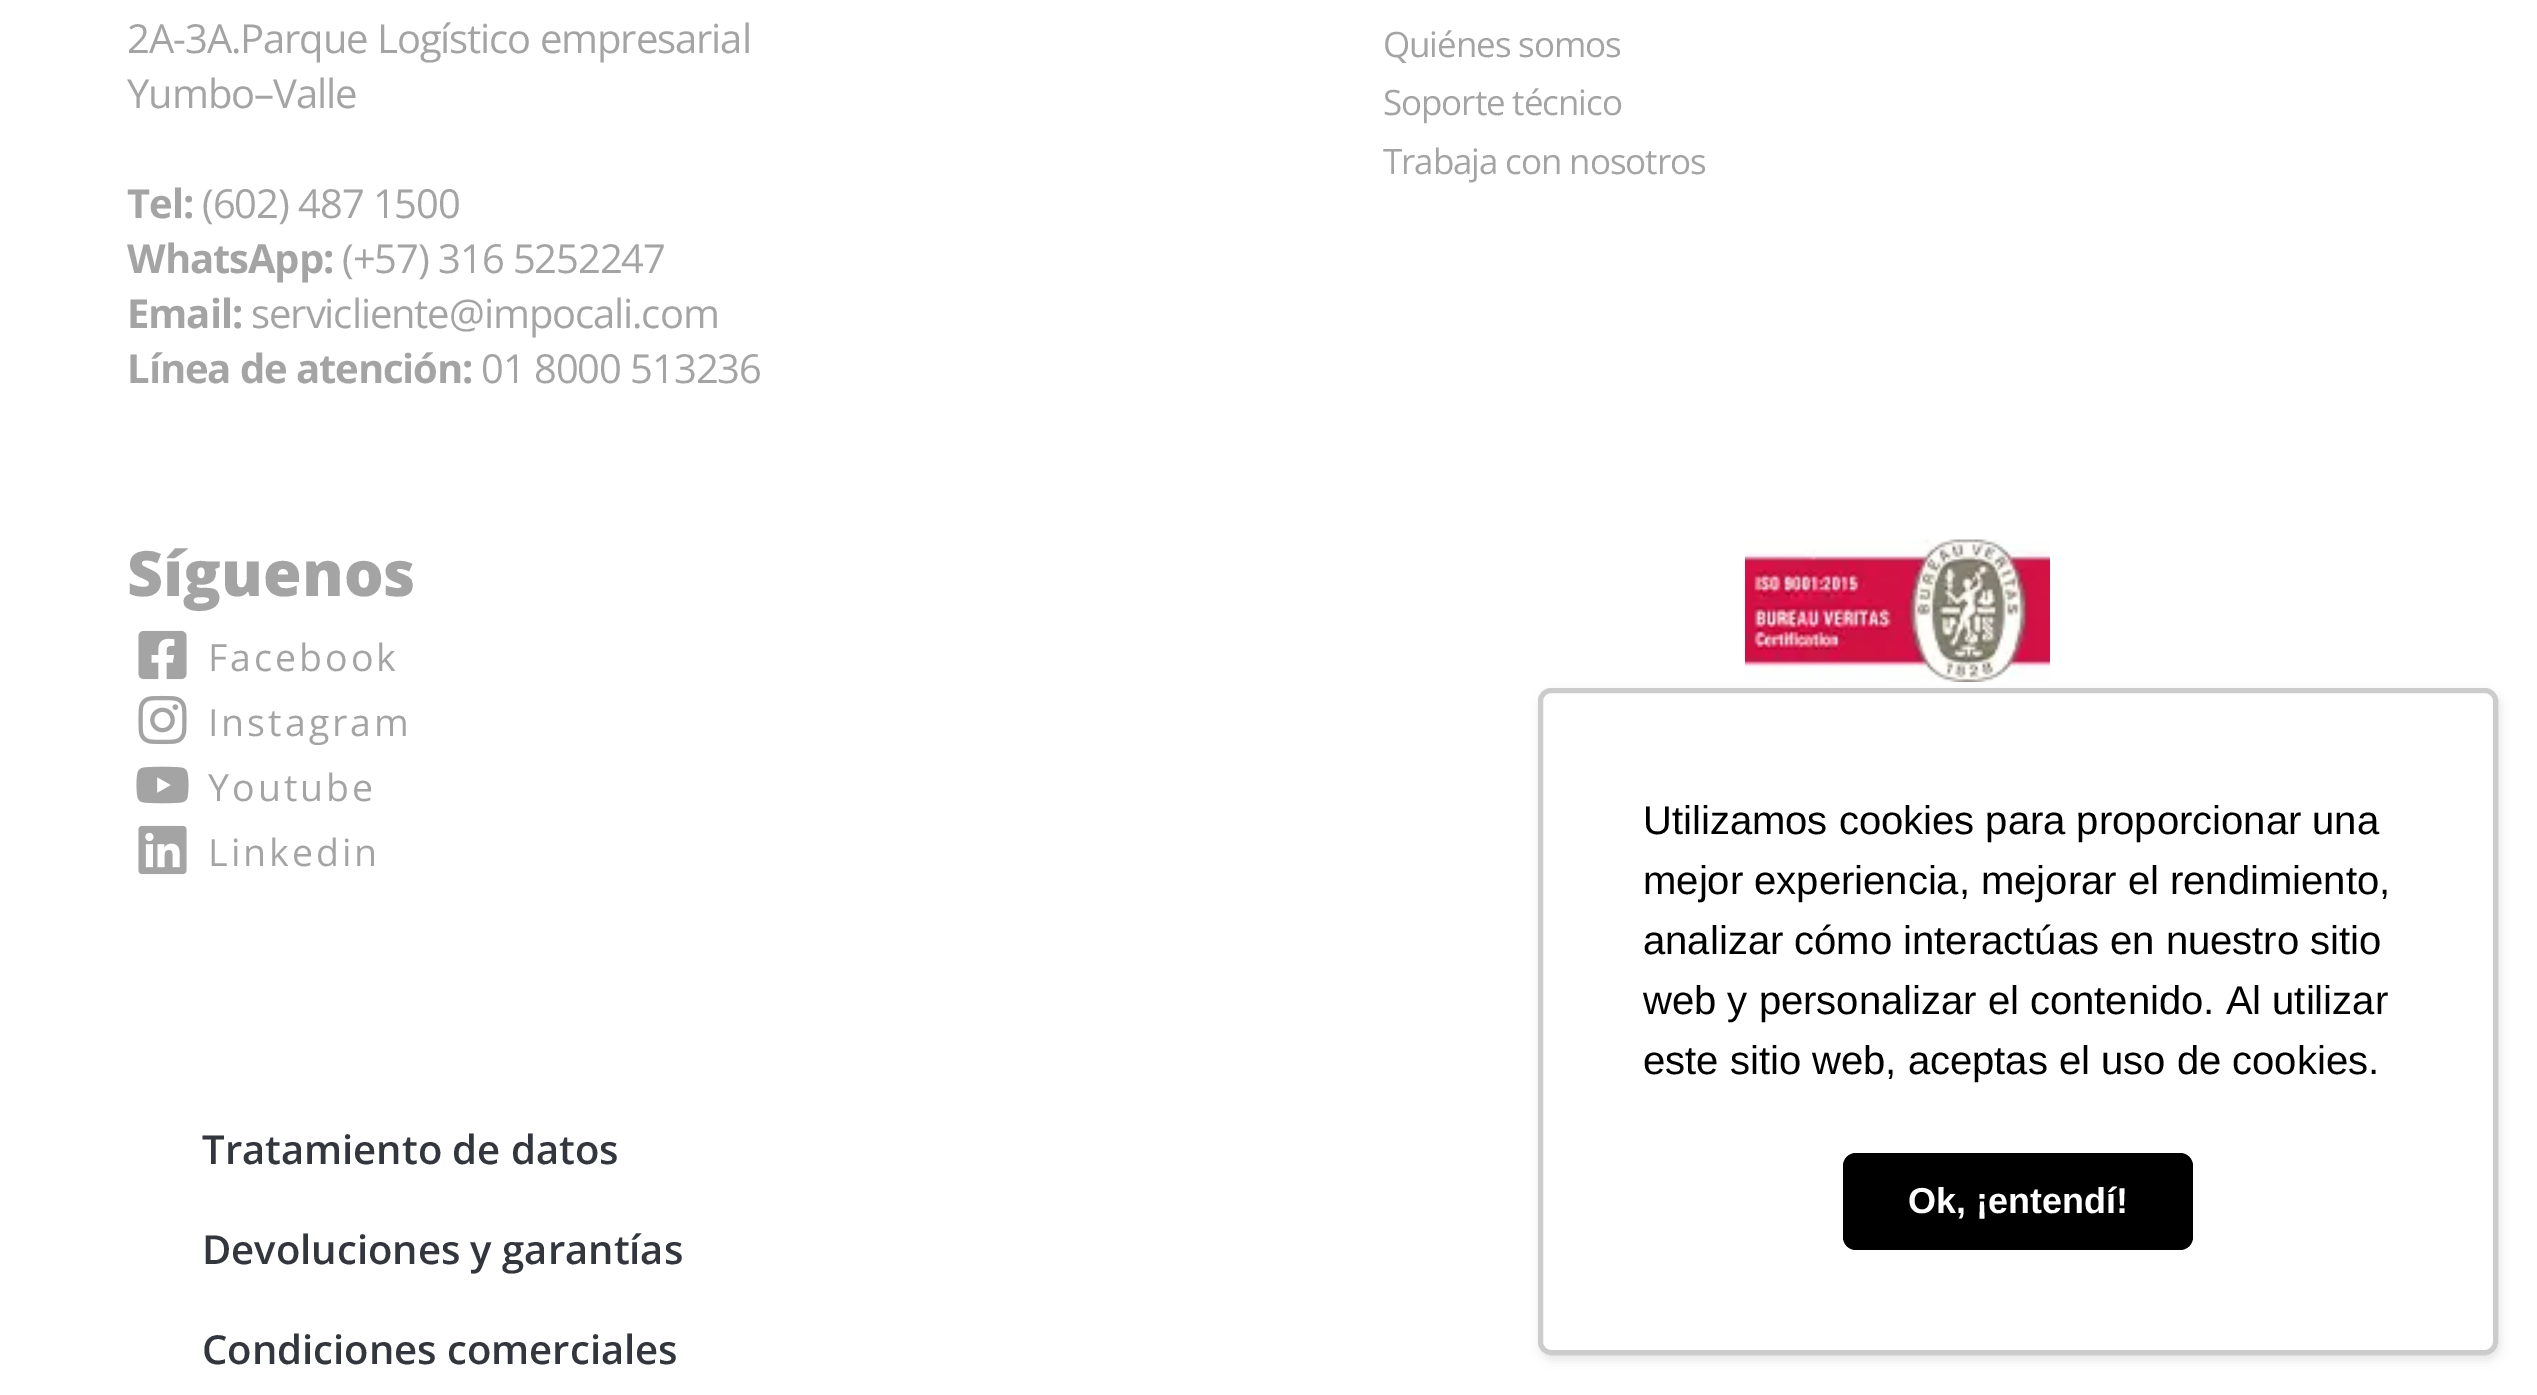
%!PS
<< /PageSize [2537 1395] /PageUsesTransparency true >> setpagedevice
/alpha { dup .setfillconstantalpha .setstrokeconstantalpha } def
/roundrect { 5 dict begin { /r /h /w /y /x } { exch def } forall
  x r add y moveto x w add y 2 copy h add r arct x w add y h add x 1 index r arct
  x y h add x y r arct x y 2 copy exch w add exch r arct closepath end } def
/shadow { 12 dict begin { /a /b /q /h /w /y /x } { exch def } forall gsave /was 0 def
  9 -2 -9 { dup b mul 4 div /e exch def 1 sub .425 mul 2.718 exch exp 1 add a .99 .min exch div /now exch def
    1 1 now sub 1 was sub div sub alpha /was now def
    w h .min e 2 mul add 0 gt { x e sub y e sub w e 2 mul add h e 2 mul add
      q e add b .6 mul add w h .min 2 div e add .min 0 .max roundrect fill } if } for grestore end } def
/picture { 5 dict begin { /h /w /y /x /name } { exch def } forall
  gsave x y translate w h scale
  w h 8 [w 0 0 h 0 0] name (r) file false 3 colorimage grestore end } def
0 .pushpdf14devicefilter
0 1395 translate 1 -1 scale
4 setmiterlimit
1 setgray
0 0 2537 1395 rectfill
/OpenSans-Regular [40 0 0 -40 0 0] selectfont
0.643 setgray
127 53 moveto -1.1 0 (2A-3A.Parque Logístico empresarial) ashow
127 108 moveto -1.1 0 (Yumbo–Valle) ashow
/OpenSans-Bold [40 0 0 -40 0 0] selectfont
127 218 moveto -1.1 0 (Tel:) ashow
/OpenSans-Regular [40 0 0 -40 0 0] selectfont
202 218 moveto -1.1 0 (\(602\) 487 1500) ashow
/OpenSans-Bold [40 0 0 -40 0 0] selectfont
127 273 moveto -1.1 0 (WhatsApp:) ashow
/OpenSans-Regular [40 0 0 -40 0 0] selectfont
342 273 moveto -1.1 0 (\(+57\) 316 5252247) ashow
/OpenSans-Bold [40 0 0 -40 0 0] selectfont
127 328 moveto -1.1 0 (Email:) ashow
/OpenSans-Regular [40 0 0 -40 0 0] selectfont
251 328 moveto -1.1 0 (servicliente@impocali.com) ashow
/OpenSans-Bold [40 0 0 -40 0 0] selectfont
127 383 moveto -1.1 0 (Línea de atención:) ashow
/OpenSans-Regular [40 0 0 -40 0 0] selectfont
481 383 moveto -1.1 0 (01 8000 513236) ashow
/OpenSans-Regular [35 0 0 -35 0 0] selectfont
1383 57 moveto -1.1 0 (Quiénes somos) ashow
1383 115 moveto -1.1 0 (Soporte técnico) ashow
1383 174 moveto -1.1 0 (Trabaja con nosotros) ashow
/OpenSans-ExtraBold [62.5 0 0 -62.5 0 0] selectfont
127 596 moveto (Síguenos) show
(img1.rgb) 138 630 49 50 picture
/OpenSans-Regular [37.5 0 0 -37.5 0 0] selectfont
208 671 moveto 3 0 (Facebook) ashow
(img2.rgb) 138 695 49 50 picture
208 736 moveto 3 0 (Instagram) ashow
(img3.rgb) 136 766 53 38 picture
208 801 moveto 3 0 (Youtube) ashow
(img4.rgb) 138 825 49 50 picture
208 866 moveto 3 0 (Linkedin) ashow
(img5.rgb) 1745 539 305 143 picture
/OpenSans-SemiBold [40 0 0 -40 0 0] selectfont
0.2 0.216 0.239 setrgbcolor
202 1164 moveto (Tratamiento de datos) show
202 1264 moveto (Devoluciones y garantías) show
202 1364 moveto (Condiciones comerciales) show
0 setgray
1540 693 960 667 13 5 0.1 shadow
1 setgray
1538 688 960 667 13 roundrect fill
0.2 alpha
0 setgray
5 setlinewidth
1540.5 690.5 955 662 10.5 roundrect stroke
/LiberationSans-Regular [40 0 0 -40 0 0] selectfont
1 alpha
1643 834 moveto (Utilizamos cookies para proporcionar una) show
1643 894 moveto (mejor experiencia, mejorar el rendimiento,) show
1643 954 moveto (analizar cómo interactúas en nuestro sitio) show
1643 1014 moveto (web y personalizar el contenido. Al utilizar) show
1643 1074 moveto (este sitio web, aceptas el uso de cookies.) show
1843 1153 350 97 13 roundrect fill
/LiberationSans-Bold [36 0 0 -36 0 0] selectfont
1 setgray
1908 1213 moveto (Ok, ¡entendí!) show
.poppdf14devicefilter showpage
